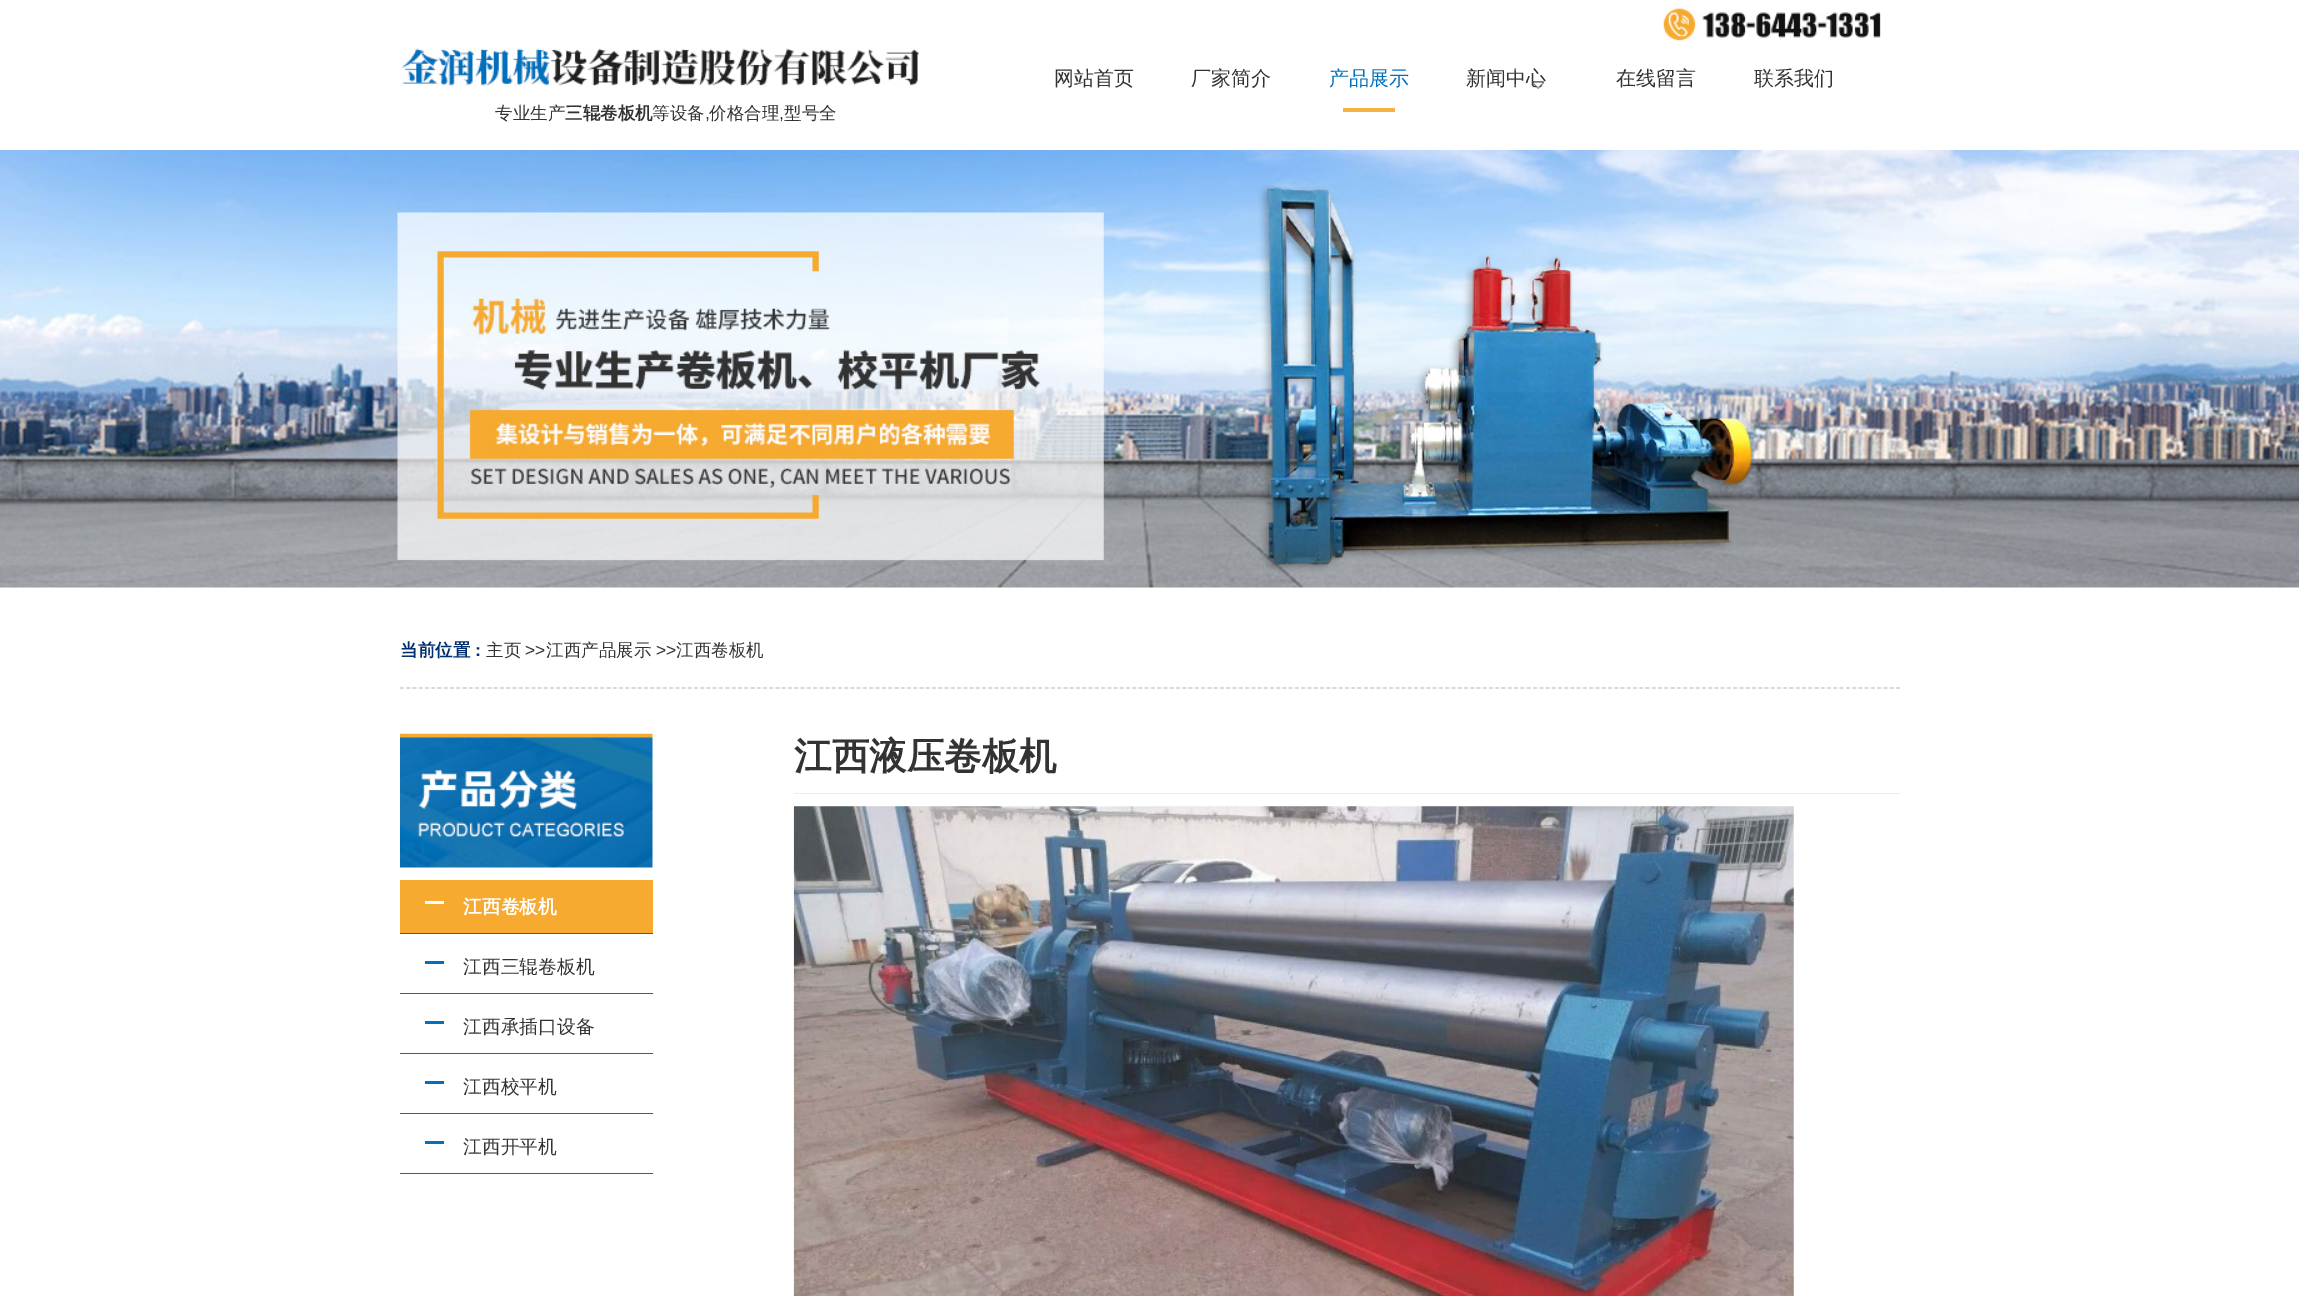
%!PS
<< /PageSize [2299 1296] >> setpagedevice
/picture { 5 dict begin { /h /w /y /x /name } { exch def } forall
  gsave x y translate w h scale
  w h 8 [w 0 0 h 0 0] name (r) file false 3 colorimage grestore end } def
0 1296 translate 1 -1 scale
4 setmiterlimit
1 setgray
0 0 2299 1296 rectfill
(img1.rgb) 1663 4 218 37 picture
/WenQuanYiZenHei-Medium [20 0 0 -20 0 0] selectfont
0.2 setgray
1054 85 moveto (网站首页) show
1191 85 moveto (厂家简介) show
0.973 0.698 0.263 setrgbcolor
1343 108 52 4 rectfill
0 0.439 0.737 setrgbcolor
1329 85 moveto (产品展示) show
0.2 setgray
1466 85 moveto (新闻中心) show
(img2.rgb) 1532 81 12 8 picture
1616 85 moveto (在线留言) show
1754 85 moveto (联系我们) show
(img3.rgb) 401 48 519 38 picture
/WenQuanYiZenHei-Medium [17.5 0 0 -17.5 0 0] selectfont
495 119 moveto (专业生产) show
/WenQuanYiZenHei-Bold [17.5 0 0 -17.5 0 0] selectfont
565 119 moveto (三辊卷板机) show
/WenQuanYiZenHei-Medium [17.5 0 0 -17.5 0 0] selectfont
652 119 moveto (等设备) show
/LiberationSans-Regular [17.5 0 0 -17.5 0 0] selectfont
705 119 moveto (,) show
/WenQuanYiZenHei-Medium [17.5 0 0 -17.5 0 0] selectfont
709 119 moveto (价格合理) show
/LiberationSans-Regular [17.5 0 0 -17.5 0 0] selectfont
779 119 moveto (,) show
/WenQuanYiZenHei-Medium [17.5 0 0 -17.5 0 0] selectfont
784 119 moveto (型号全) show
(img4.rgb) 0 150 2299 438 picture
0.8 setgray
1.2 setlinewidth
[3.75 2.51] 0 setdash
newpath 400 688 moveto 1900 688 lineto stroke
/WenQuanYiZenHei-Bold [17.5 0 0 -17.5 0 0] selectfont
0.004 0.18 0.435 setrgbcolor
400 656 moveto (当前位置) show
/LiberationSans-Bold [17.5 0 0 -17.5 0 0] selectfont
475 656 moveto (:) show
/WenQuanYiZenHei-Medium [17.5 0 0 -17.5 0 0] selectfont
0.2 setgray
486 656 moveto (主页) show
/LiberationSans-Regular [17.5 0 0 -17.5 0 0] selectfont
525 656 moveto (>>) show
/WenQuanYiZenHei-Medium [17.5 0 0 -17.5 0 0] selectfont
546 656 moveto (江西产品展示) show
/LiberationSans-Regular [17.5 0 0 -17.5 0 0] selectfont
656 656 moveto (>>) show
/WenQuanYiZenHei-Medium [17.5 0 0 -17.5 0 0] selectfont
676 656 moveto (江西卷板机) show
0.925 setgray
794 793 1106 1 rectfill
/WenQuanYiZenHei-Bold [37.5 0 0 -37.5 0 0] selectfont
0.2 setgray
794 769 moveto (江西液压卷板机) show
(img5.rgb) 793 806 1001 490 picture
(img6.rgb) 400 733 253 135 picture
0 0.439 0.737 setrgbcolor
400 933 253 1 rectfill
0.965 0.667 0.188 setrgbcolor
400 880 253 53 rectfill
1 setgray
425 901 19 3 rectfill
/WenQuanYiZenHei-Bold [18.75 0 0 -18.75 0 0] selectfont
463 913 moveto (江西卷板机) show
0 0.439 0.737 setrgbcolor
425 961 19 3 rectfill
400 993 253 1 rectfill
/WenQuanYiZenHei-Medium [18.75 0 0 -18.75 0 0] selectfont
0.2 setgray
463 973 moveto (江西三辊卷板机) show
0 0.439 0.737 setrgbcolor
425 1021 19 3 rectfill
400 1053 253 1 rectfill
0.2 setgray
463 1033 moveto (江西承插口设备) show
0 0.439 0.737 setrgbcolor
425 1081 19 3 rectfill
400 1113 253 1 rectfill
0.2 setgray
463 1093 moveto (江西校平机) show
0 0.439 0.737 setrgbcolor
425 1141 19 3 rectfill
400 1173 253 1 rectfill
0.2 setgray
463 1153 moveto (江西开平机) show
showpage
